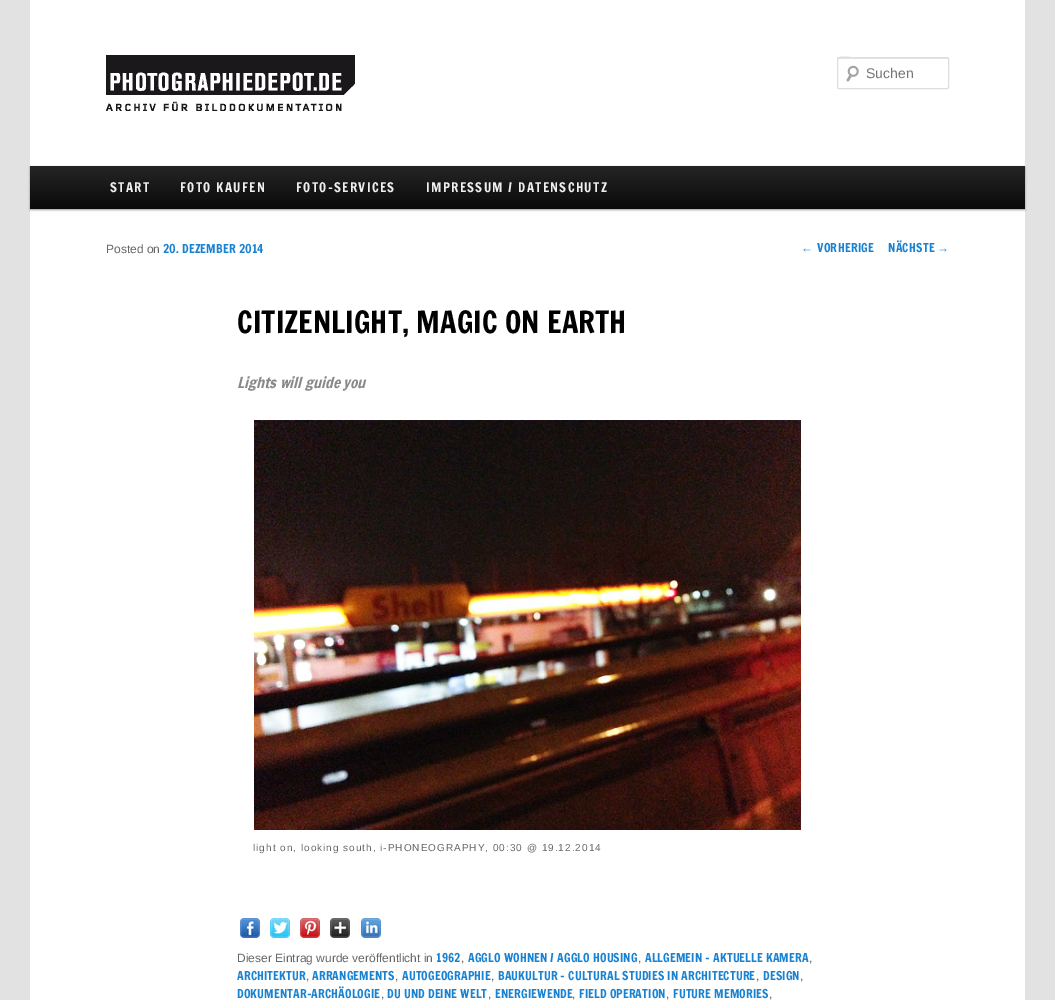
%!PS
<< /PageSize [1055 1000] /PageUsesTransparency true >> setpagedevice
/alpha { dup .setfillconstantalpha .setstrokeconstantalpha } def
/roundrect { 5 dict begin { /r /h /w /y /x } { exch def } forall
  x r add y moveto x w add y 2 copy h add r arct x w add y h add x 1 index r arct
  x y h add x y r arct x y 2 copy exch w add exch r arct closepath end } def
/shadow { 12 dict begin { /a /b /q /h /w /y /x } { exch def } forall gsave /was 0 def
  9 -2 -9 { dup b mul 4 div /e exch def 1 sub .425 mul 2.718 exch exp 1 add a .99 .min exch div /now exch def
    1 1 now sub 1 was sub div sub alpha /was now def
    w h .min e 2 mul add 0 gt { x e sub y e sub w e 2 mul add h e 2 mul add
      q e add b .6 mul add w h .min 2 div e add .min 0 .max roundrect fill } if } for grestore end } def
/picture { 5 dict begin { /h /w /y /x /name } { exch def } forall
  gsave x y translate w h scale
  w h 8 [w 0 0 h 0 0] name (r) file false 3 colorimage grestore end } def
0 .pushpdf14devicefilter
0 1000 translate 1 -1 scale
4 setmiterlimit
0.886 setgray
0 0 1055 1000 rectfill
1 setgray
30 0 995 1000 rectfill
(img1.rgb) 106 55 249 56 picture
(img2.rgb) 846 65 13 17 picture
0.902 setgray
newpath 839 59 moveto 948 59 lineto 948 60 lineto 947 58 lineto 857 58 lineto 853 58 838 53 838 60 curveto 838 59 838 59 839 59 curveto closepath fill
0.867 setgray
837.5 57.5 111 31 1.5 roundrect stroke
/LiberationSans-Regular [14 0 0 -14 0 0] selectfont
0.459 setgray
866 78 moveto (Suchen) show
0 setgray
30 167 995 43 0 1 0.4 shadow
gsave newpath 30 166 moveto 1025 166 lineto 1025 209 lineto 30 209 lineto closepath clip newpath
<< /ShadingType 2 /ColorSpace /DeviceRGB /Coords [528 166 528 209] /Extend [true true] /Function << /FunctionType 2 /Domain [0 1] /C0 [0.145 0.145 0.145] /C1 [0.039 0.039 0.039] /N 1 >> >> shfill grestore
/FrancoisOne-Regular [13 0 0 -13 0 0] selectfont
0.933 setgray
110 192 moveto 1.3 0 (START) ashow
180 192 moveto 1.3 0 (FOTO KAUFEN) ashow
296 192 moveto 1.3 0 (FOTO-SERVICES) ashow
426 192 moveto 1.3 0 (IMPRESSUM / DATENSCHUTZ) ashow
/LiberationSans-Regular [12 0 0 -12 0 0] selectfont
0.4 setgray
106 253 moveto (Posted on) show
/FrancoisOne-Regular [12 0 0 -12 0 0] selectfont
0.098 0.51 0.82 setrgbcolor
163 253 moveto 0.1 0 (20. DEZEMBER 2014) ashow
/FrancoisOne-Regular [30 0 0 -30 0 0] selectfont
0 setgray
237 333 moveto (CITIZENLIGHT, MAGIC ON EARTH) show
/FrancoisOne-Italic [15 0 0 -15 0 0] selectfont
0.533 setgray
237 388 moveto (Lights will guide you) show
(img3.rgb) 254 420 547 410 picture
/LiberationSans-Regular [10 0 0 -10 0 0] selectfont
0.4 setgray
253 851 moveto 1 0 (light on, looking south, i-PHONEOGRAPHY, 00:30 @ 19.12.2014) ashow
(img4.rgb) 240 918 20 20 picture
(img5.rgb) 270 918 20 20 picture
(img6.rgb) 300 918 20 20 picture
(img7.rgb) 330 918 20 20 picture
(img8.rgb) 361 918 20 20 picture
/LiberationSans-Regular [12 0 0 -12 0 0] selectfont
237 962 moveto (Dieser Eintrag wurde veröffentlicht in) show
/FrancoisOne-Regular [12 0 0 -12 0 0] selectfont
0.098 0.51 0.82 setrgbcolor
436 962 moveto 0.1 0 (1962) ashow
/LiberationSans-Regular [12 0 0 -12 0 0] selectfont
0.4 setgray
461 962 moveto (,) show
/FrancoisOne-Regular [12 0 0 -12 0 0] selectfont
0.098 0.51 0.82 setrgbcolor
468 962 moveto 0.1 0 (AGGLO WOHNEN / AGGLO HOUSING) ashow
/LiberationSans-Regular [12 0 0 -12 0 0] selectfont
0.4 setgray
638 962 moveto (,) show
/FrancoisOne-Regular [12 0 0 -12 0 0] selectfont
0.098 0.51 0.82 setrgbcolor
645 962 moveto 0.1 0 (ALLGEMEIN – AKTUELLE KAMERA) ashow
/LiberationSans-Regular [12 0 0 -12 0 0] selectfont
0.4 setgray
809 962 moveto (,) show
/FrancoisOne-Regular [12 0 0 -12 0 0] selectfont
0.098 0.51 0.82 setrgbcolor
237 980 moveto 0.1 0 (ARCHITEKTUR) ashow
/LiberationSans-Regular [12 0 0 -12 0 0] selectfont
0.4 setgray
306 980 moveto (,) show
/FrancoisOne-Regular [12 0 0 -12 0 0] selectfont
0.098 0.51 0.82 setrgbcolor
312 980 moveto 0.1 0 (ARRANGEMENTS) ashow
/LiberationSans-Regular [12 0 0 -12 0 0] selectfont
0.4 setgray
395 980 moveto (,) show
/FrancoisOne-Regular [12 0 0 -12 0 0] selectfont
0.098 0.51 0.82 setrgbcolor
402 980 moveto 0.1 0 (AUTOGEOGRAPHIE) ashow
/LiberationSans-Regular [12 0 0 -12 0 0] selectfont
0.4 setgray
491 980 moveto (,) show
/FrancoisOne-Regular [12 0 0 -12 0 0] selectfont
0.098 0.51 0.82 setrgbcolor
498 980 moveto 0.1 0 (BAUKULTUR – CULTURAL STUDIES IN ARCHITECTURE) ashow
/LiberationSans-Regular [12 0 0 -12 0 0] selectfont
0.4 setgray
756 980 moveto (,) show
/FrancoisOne-Regular [12 0 0 -12 0 0] selectfont
0.098 0.51 0.82 setrgbcolor
763 980 moveto 0.1 0 (DESIGN) ashow
/LiberationSans-Regular [12 0 0 -12 0 0] selectfont
0.4 setgray
800 980 moveto (,) show
/FrancoisOne-Regular [12 0 0 -12 0 0] selectfont
0.098 0.51 0.82 setrgbcolor
237 998 moveto 0.1 0 (DOKUMENTAR-ARCHÄOLOGIE) ashow
/LiberationSans-Regular [12 0 0 -12 0 0] selectfont
0.4 setgray
381 998 moveto (,) show
/FrancoisOne-Regular [12 0 0 -12 0 0] selectfont
0.098 0.51 0.82 setrgbcolor
387 998 moveto 0.1 0 (DU UND DEINE WELT) ashow
/LiberationSans-Regular [12 0 0 -12 0 0] selectfont
0.4 setgray
488 998 moveto (,) show
/FrancoisOne-Regular [12 0 0 -12 0 0] selectfont
0.098 0.51 0.82 setrgbcolor
495 998 moveto 0.1 0 (ENERGIEWENDE) ashow
/LiberationSans-Regular [12 0 0 -12 0 0] selectfont
0.4 setgray
572 998 moveto (,) show
/FrancoisOne-Regular [12 0 0 -12 0 0] selectfont
0.098 0.51 0.82 setrgbcolor
579 998 moveto 0.1 0 (FIELD OPERATION) ashow
/LiberationSans-Regular [12 0 0 -12 0 0] selectfont
0.4 setgray
666 998 moveto (,) show
/FrancoisOne-Regular [12 0 0 -12 0 0] selectfont
0.098 0.51 0.82 setrgbcolor
673 998 moveto 0.1 0 (FUTURE MEMORIES) ashow
/LiberationSans-Regular [12 0 0 -12 0 0] selectfont
0.4 setgray
769 998 moveto (,) show
0.098 0.51 0.82 setrgbcolor
801 252 moveto 0.1 0 (←) ashow
/FrancoisOne-Regular [12 0 0 -12 0 0] selectfont
817 252 moveto 0.25 0 (VORHERIGE) ashow
888 252 moveto 0.25 0 (NÄCHSTE) ashow
/LiberationSans-Regular [12 0 0 -12 0 0] selectfont
937 252 moveto 0.1 0 (→) ashow
.poppdf14devicefilter showpage
